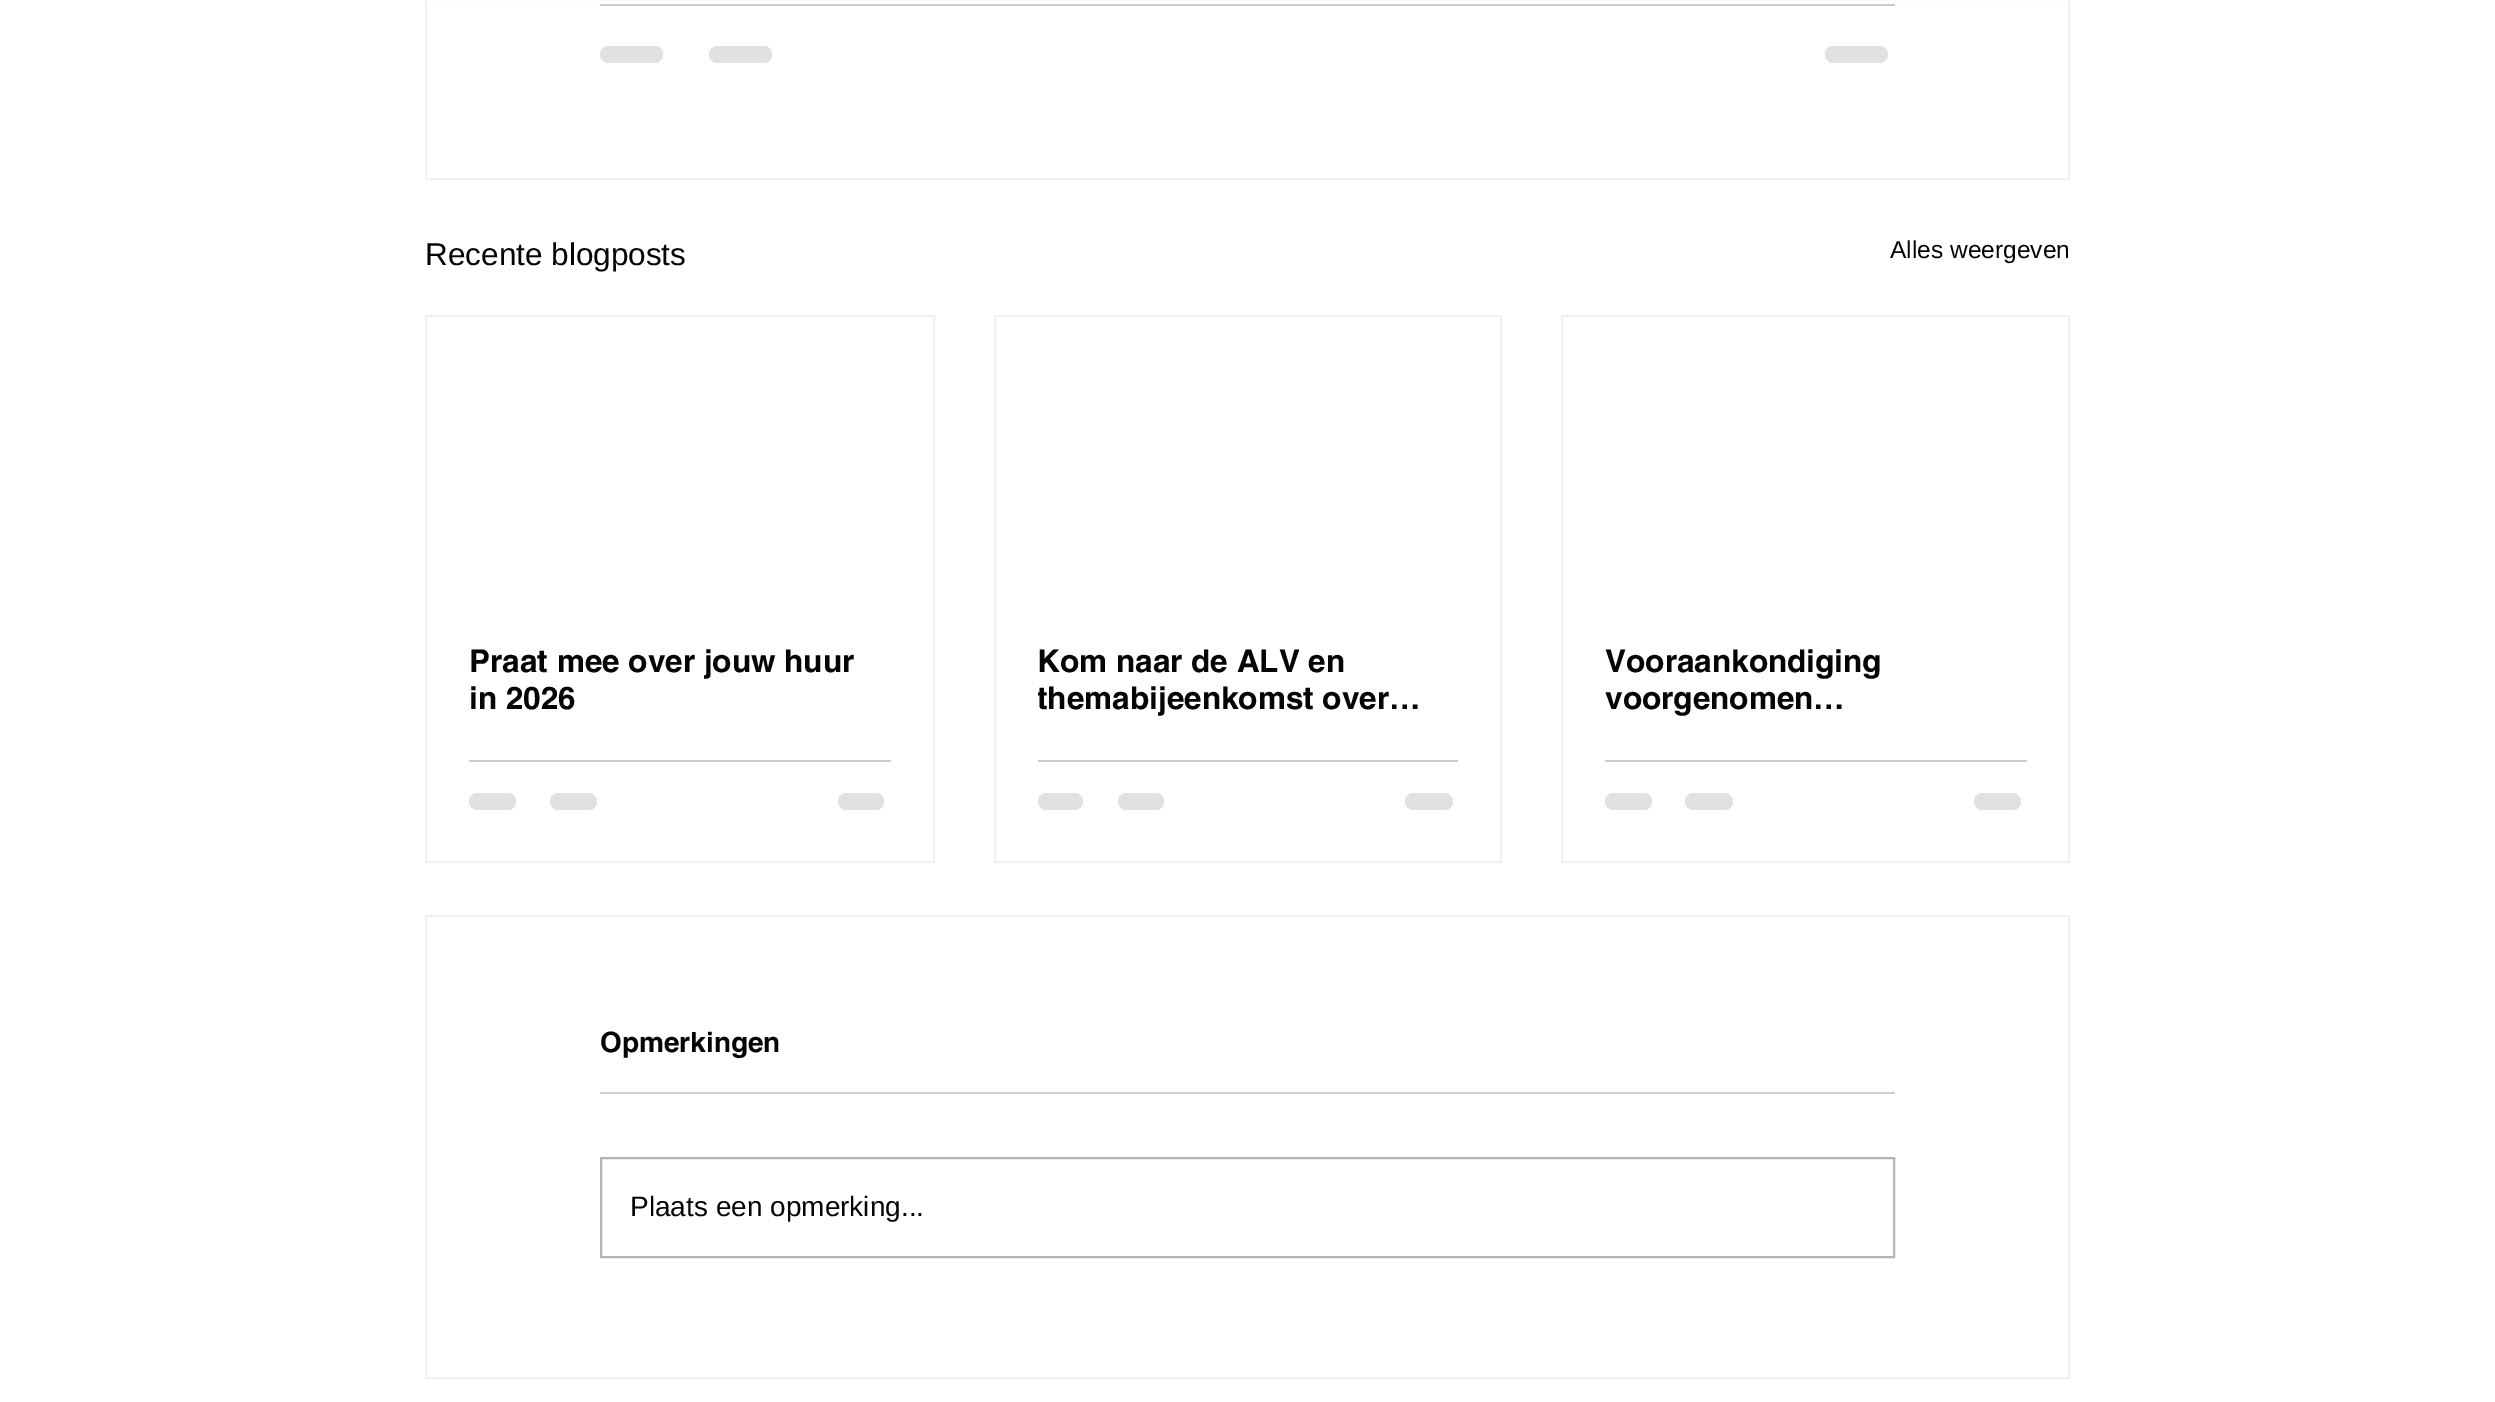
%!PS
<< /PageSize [2495 1402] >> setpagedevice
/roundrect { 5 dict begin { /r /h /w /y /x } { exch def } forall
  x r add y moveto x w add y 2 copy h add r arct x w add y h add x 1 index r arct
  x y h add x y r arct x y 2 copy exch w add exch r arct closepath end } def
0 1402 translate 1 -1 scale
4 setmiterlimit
1 setgray
0 0 2495 1402 rectfill
0.945 setgray
2 setlinewidth
426 -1 1643 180 rectstroke
0.804 setgray
600 4 1295 2 rectfill
0.882 setgray
600 46 63 17 8.5 roundrect fill
709 46 63 17 8.5 roundrect fill
1825 46 63 17 8.5 roundrect fill
/LiberationSans-Regular [31.5 0 0 -31.5 0 0] selectfont
0.02 setgray
425 265 moveto (Recente blogposts) show
/LiberationSans-Regular [24.5 0 0 -24.5 0 0] selectfont
1890 258 moveto (Alles weergeven) show
0.945 setgray
426 316 508 546 rectstroke
/helvetica-Bold [31.5 0 0 -31.5 0 0] selectfont
0.02 setgray
469 672 moveto (Praat mee over jouw huur) show
469 709 moveto (in 2026) show
0.804 setgray
469 760 422 2 rectfill
0.882 setgray
469 793 47 17 8.5 roundrect fill
550 793 47 17 8.5 roundrect fill
838 793 46 17 8.5 roundrect fill
0.945 setgray
995 316 506 546 rectstroke
0.02 setgray
1037 672 moveto (Kom naar de ALV en) show
gsave
1038 642 420 74 rectclip
1037 709 moveto (themabijeenkomst over…) show
grestore
0.804 setgray
1038 760 420 2 rectfill
0.882 setgray
1038 793 45 17 8.5 roundrect fill
1118 793 46 17 8.5 roundrect fill
1405 793 48 17 8.5 roundrect fill
0.945 setgray
1562 316 507 546 rectstroke
0.02 setgray
1605 672 moveto (Vooraankondiging) show
1605 709 moveto (voorgenomen…) show
0.804 setgray
1605 760 422 2 rectfill
0.882 setgray
1605 793 47 17 8.5 roundrect fill
1685 793 48 17 8.5 roundrect fill
1974 793 47 17 8.5 roundrect fill
0.945 setgray
426 916 1643 462 rectstroke
/helvetica-Bold [28 0 0 -28 0 0] selectfont
0.02 setgray
600 1052 moveto (Opmerkingen) show
0.804 setgray
600 1092 1295 2 rectfill
0.706 setgray
601 1158 1293 99 rectstroke
/LiberationSans-Regular [28 0 0 -28 0 0] selectfont
0.02 setgray
630 1216 moveto (Plaats een opmerking...) show
showpage
